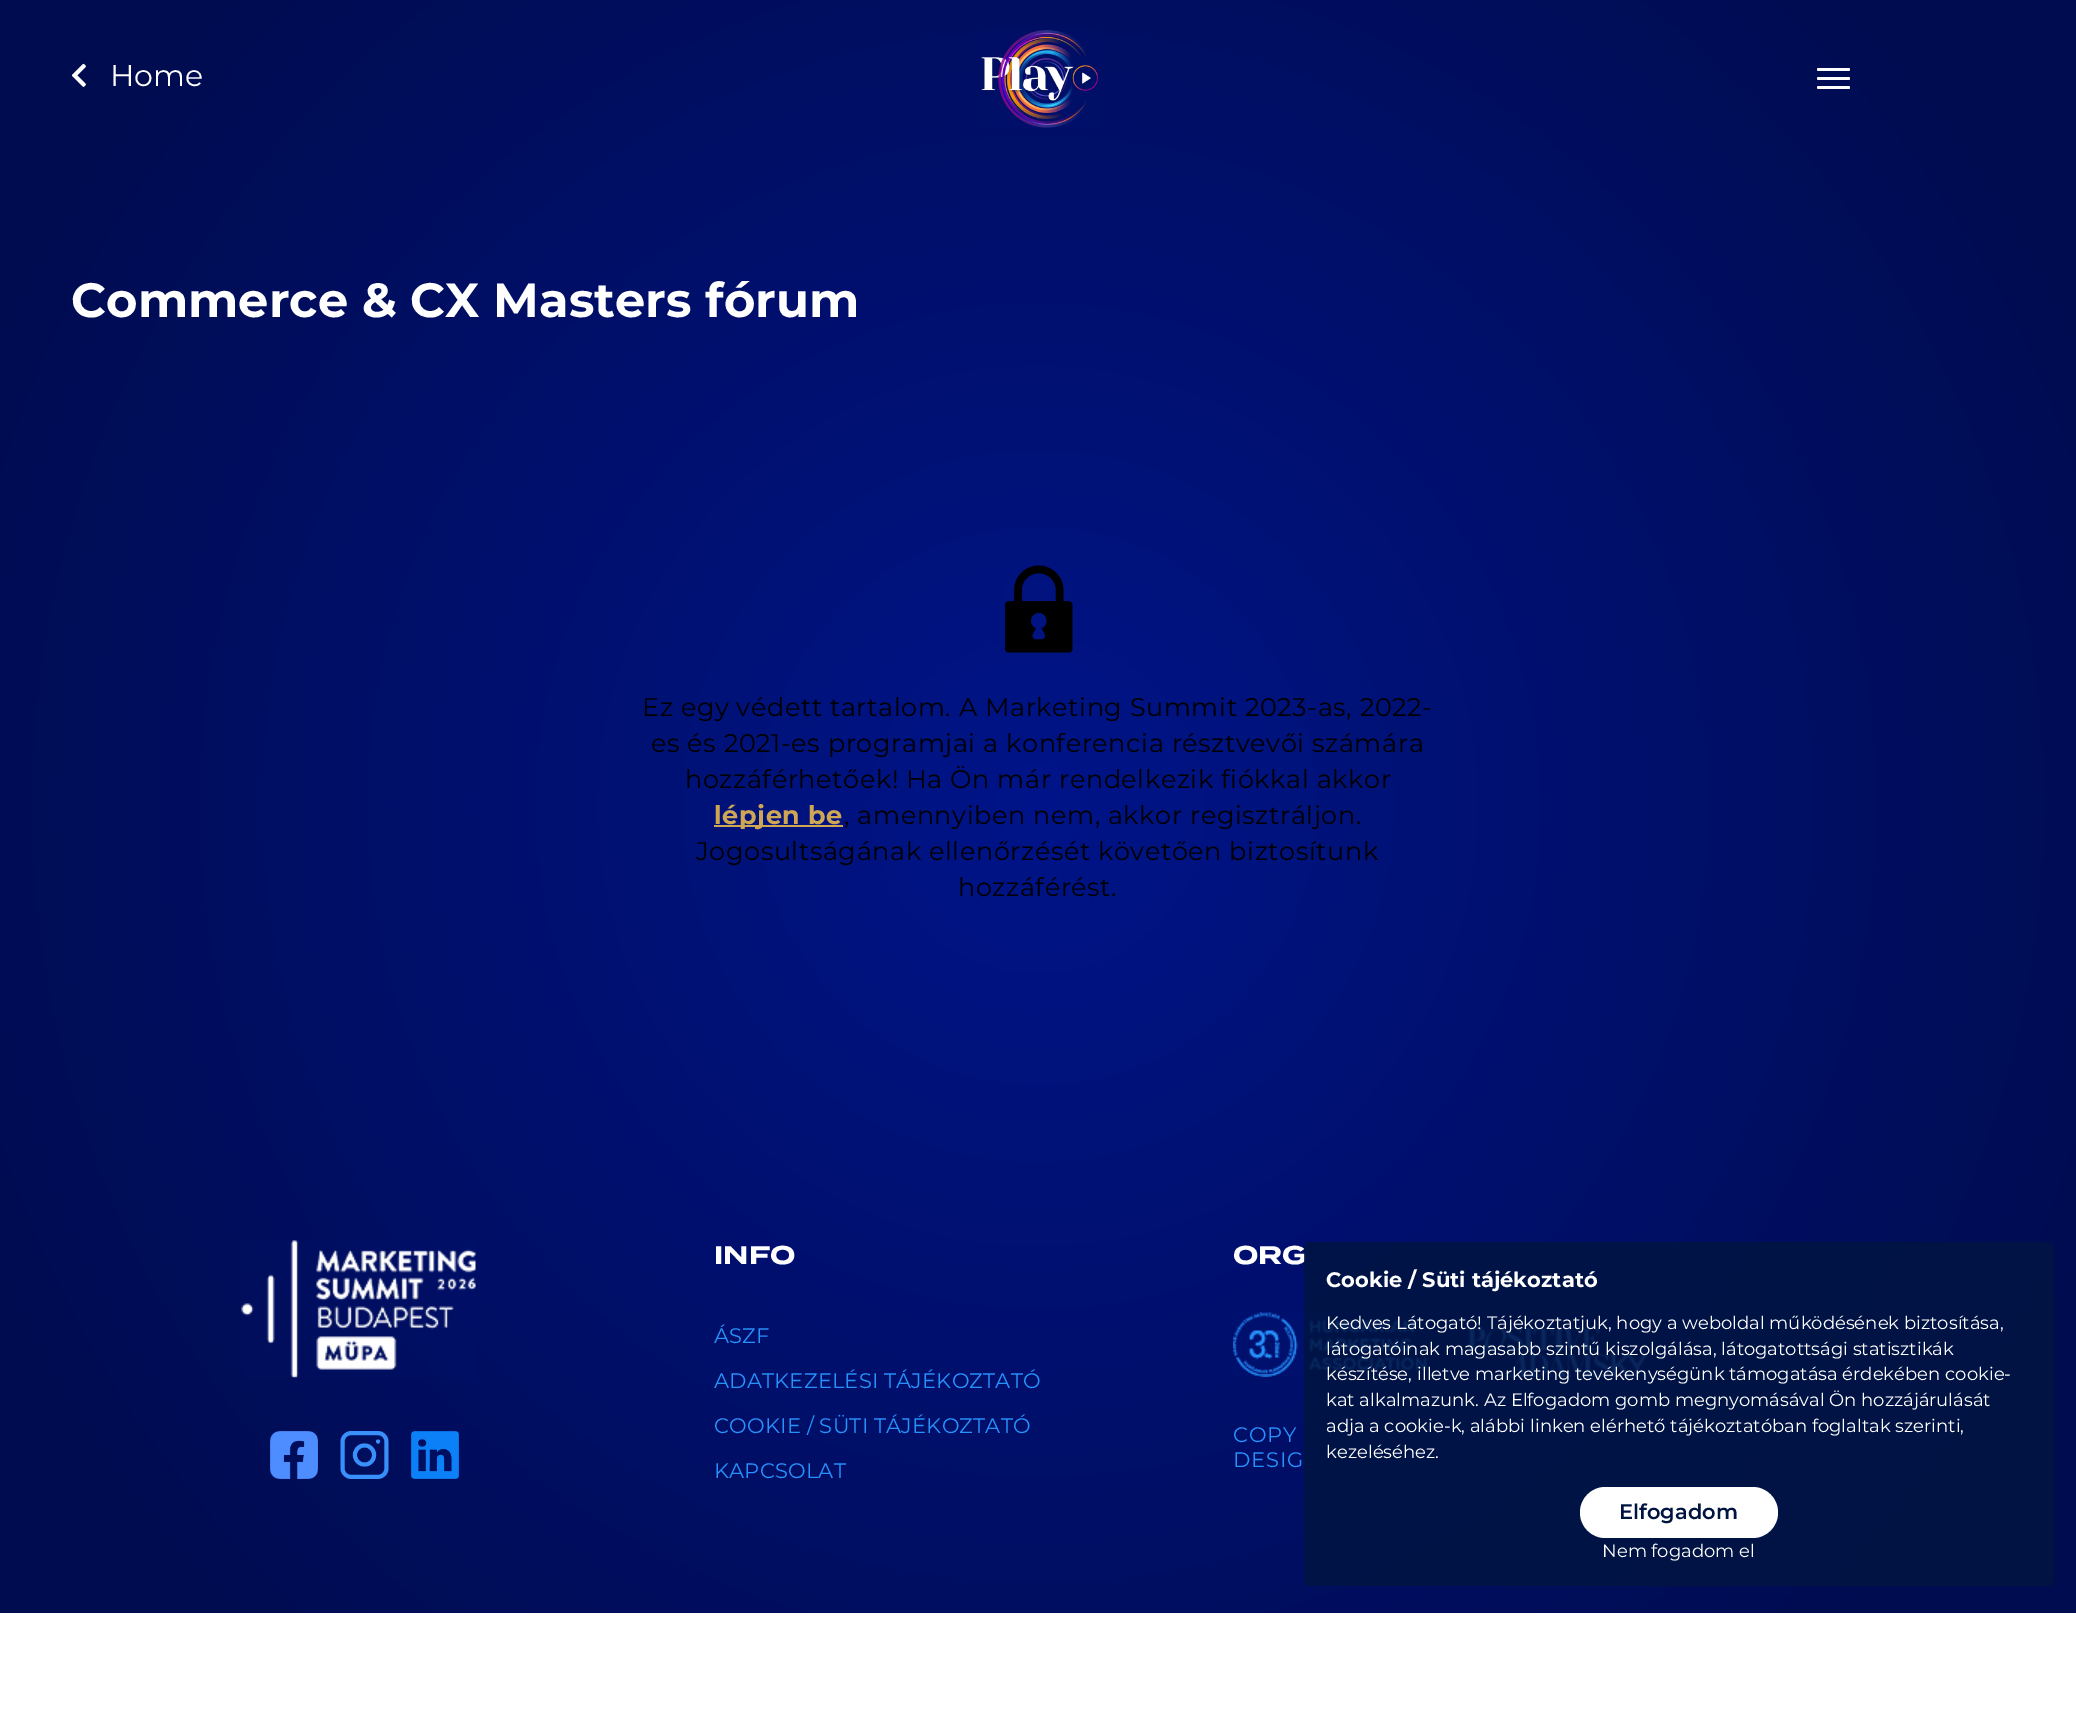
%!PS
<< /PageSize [2076 1712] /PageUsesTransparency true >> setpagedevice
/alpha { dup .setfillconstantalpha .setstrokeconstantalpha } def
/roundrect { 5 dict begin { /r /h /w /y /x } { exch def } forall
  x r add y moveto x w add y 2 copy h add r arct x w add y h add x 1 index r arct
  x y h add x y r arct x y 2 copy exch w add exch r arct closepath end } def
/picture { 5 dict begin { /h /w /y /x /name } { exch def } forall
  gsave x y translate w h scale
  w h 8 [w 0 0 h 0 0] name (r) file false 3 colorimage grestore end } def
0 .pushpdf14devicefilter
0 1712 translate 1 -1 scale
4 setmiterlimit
1 setgray
0 0 2076 1712 rectfill
gsave newpath 0 0 moveto 2076 0 lineto 2076 1613 lineto 0 1613 lineto closepath clip newpath 1038 806 translate 5258 5258 scale
<< /ShadingType 3 /ColorSpace /DeviceRGB /Coords [0 0 0 0 0 1] /Extend [true true] /Function << /FunctionType 3 /Domain [0 1] /Functions [<< /FunctionType 2 /Domain [0 1] /C0 [0 0.078 0.537] /C1 [0 0.047 0.314] /N 1 >> << /FunctionType 2 /Domain [0 1] /C0 [0 0.047 0.314] /C1 [0 0.047 0.314] /N 1 >>] /Bounds [0.22] /Encode [0 1 0 1] >> >> shfill grestore
(img1.rgb) 71 63 15 24 picture
/Montserrat-Regular [30 0 0 -30 0 0] selectfont
110 86 moveto (Home) show
(img2.rgb) 981 30 117 98 picture
1817 68 33 3 1.5 roundrect fill
1817 77 33 3 1.5 roundrect fill
1817 86 33 3 1.5 roundrect fill
/Montserrat-Bold [48 0 0 -48 0 0] selectfont
71 317 moveto (Commerce & CX Masters fórum) show
(img3.rgb) 1005 565 68 88 picture
/Montserrat-Regular [25.5 0 0 -25.5 0 0] selectfont
0 setgray
642 716 moveto 0.6 0 (Ez egy védett tartalom. A Marketing Summit 2023-as, 2022-) ashow
651 752 moveto 0.6 0 (es és 2021-es programjai a konferencia résztvevői számára) ashow
685 788 moveto 0.6 0 (hozzáférhetőek! Ha Ön már rendelkezik fiókkal akkor) ashow
0.812 0.655 0.329 setrgbcolor
714 825 129 2 rectfill
/Montserrat-Bold [25.5 0 0 -25.5 0 0] selectfont
714 824 moveto 0.6 0 (lépjen be) ashow
/Montserrat-Regular [25.5 0 0 -25.5 0 0] selectfont
0 setgray
844 824 moveto 0.6 0 (, amennyiben nem, akkor regisztráljon.) ashow
696 860 moveto 0.6 0 (Jogosultságának ellenőrzését követően biztosítunk) ashow
958 896 moveto 0.6 0 (hozzáférést.) ashow
(img4.rgb) 241 1240 235 138 picture
(img5.rgb) 270 1431 48 48 picture
(img6.rgb) 340 1431 49 48 picture
(img7.rgb) 411 1431 48 48 picture
/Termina-Bold [25.5 0 0 -25.5 0 0] selectfont
1 setgray
714 1264 moveto (INFO) show
/Montserrat-Regular [21 0 0 -21 0 0] selectfont
0.153 0.569 0.988 setrgbcolor
714 1343 moveto 0.2 0 (ÁSZF) ashow
714 1388 moveto 0.2 0 (ADATKEZELÉSI TÁJÉKOZTATÓ) ashow
714 1433 moveto 0.2 0 (COOKIE / SÜTI TÁJÉKOZTATÓ) ashow
714 1478 moveto 0.2 0 (KAPCSOLAT) ashow
/Termina-Bold [25.5 0 0 -25.5 0 0] selectfont
1 setgray
1233 1264 moveto (ORG) show
(img8.rgb) 1233 1312 194 65 picture
(img9.rgb) 1467 1327 181 50 picture
/Montserrat-Regular [21 0 0 -21 0 0] selectfont
0.153 0.569 0.988 setrgbcolor
1233 1442 moveto 0.75 0 (COPY) ashow
1233 1467 moveto 0.75 0 (DESIG) ashow
0.85 alpha
0 0.078 0.255 setrgbcolor
1304 1242 750 344 6 roundrect fill
/Montserrat-Bold [21 0 0 -21 0 0] selectfont
1 alpha
1 setgray
1326 1287 moveto (Cookie / Süti tájékoztató) show
/Montserrat-Regular [18 0 0 -18 0 0] selectfont
1326 1329 moveto (Kedves Látogató! Tájékoztatjuk, hogy a weboldal működésének biztosítása,) show
1326 1355 moveto (látogatóinak magasabb szintű kiszolgálása, látogatottsági statisztikák) show
1326 1380 moveto (készítése, illetve marketing tevékenységünk támogatása érdekében cookie-) show
1326 1406 moveto (kat alkalmazunk. Az Elfogadom gomb megnyomásával Ön hozzájárulását) show
1326 1432 moveto (adja a cookie-k, alábbi linken elérhető tájékoztatóban foglaltak szerinti,) show
1326 1458 moveto (kezeléséhez.) show
1580 1487 198 51 25.5 roundrect fill
/Montserrat-SemiBold [21 0 0 -21 0 0] selectfont
0 0.078 0.255 setrgbcolor
1619 1519 moveto (Elfogadom) show
/Montserrat-Regular [18 0 0 -18 0 0] selectfont
1 setgray
1602 1557 moveto (Nem fogadom el) show
.poppdf14devicefilter showpage
